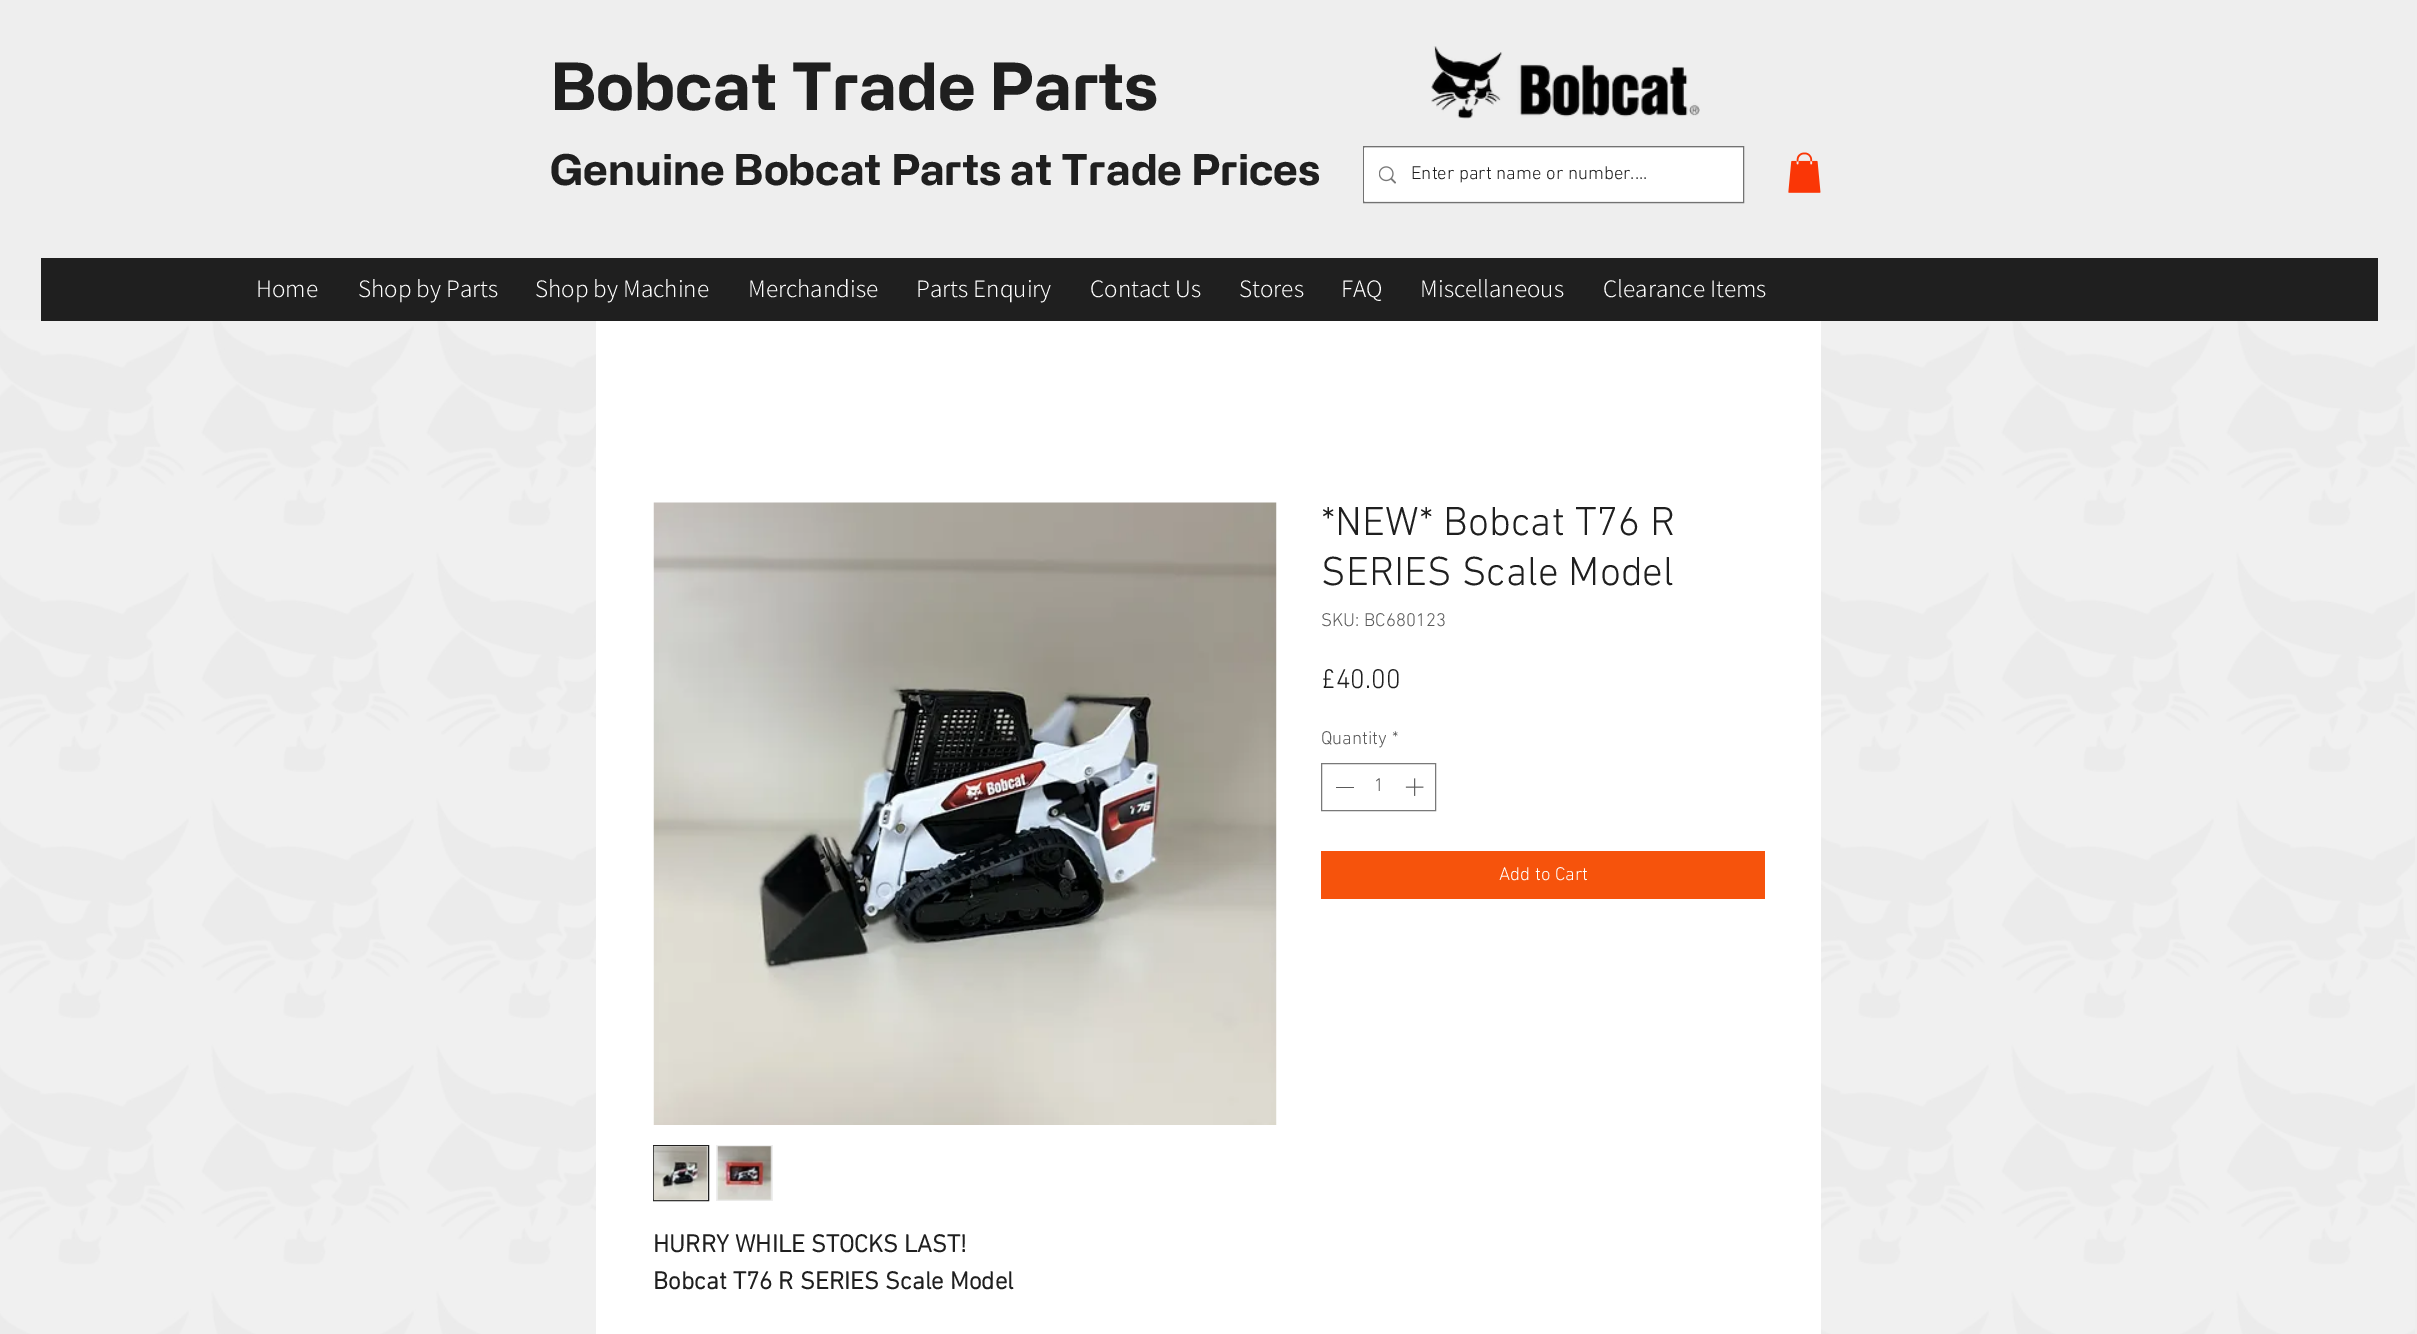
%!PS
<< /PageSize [2417 1334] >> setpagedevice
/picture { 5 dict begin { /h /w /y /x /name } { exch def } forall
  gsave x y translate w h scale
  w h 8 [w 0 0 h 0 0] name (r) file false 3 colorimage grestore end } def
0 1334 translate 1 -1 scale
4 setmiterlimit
0.933 setgray
0 0 2417 1334 rectfill
/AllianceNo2-Bold [65 0 0 -65 0 0] selectfont
0.122 setgray
550 110 moveto (Bobcat Trade Parts) show
(img1.rgb) 1431 46 269 73 picture
/AllianceNo2-Bold [42.5 0 0 -42.5 0 0] selectfont
550 185 moveto (Genuine Bobcat Parts at Trade Prices) show
0.447 setgray
1363.5 146.5 380 56 rectstroke
1 setgray
1364 148 379 53 rectfill
(img2.rgb) 1379 166 17 18 picture
/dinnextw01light-Light [18.75 0 0 -18.75 0 0] selectfont
0.122 setgray
1411 179 moveto (Enter part name or number....) show
(img3.rgb) 1788 152 33 41 picture
(img8.rgb) 0 320 2415 1014 picture
41 258 2337 63 rectfill
/Assistant-Light [25 0 0 -25 0 0] selectfont
1 setgray
256 297 moveto (Home) show
358 297 moveto (Shop by Parts) show
535 297 moveto (Shop by Machine) show
748 297 moveto (Merchandise) show
916 297 moveto (Parts Enquiry) show
1090 297 moveto (Contact Us) show
1239 297 moveto (Stores) show
1341 297 moveto (FAQ) show
1420 297 moveto (Miscellaneous) show
1603 297 moveto (Clearance Items) show
596 321 1225 1013 rectfill
/dinnextw01light-Light [41.25 0 0 -41.25 0 0] selectfont
0.122 setgray
1321 535 moveto (*NEW* Bobcat T76 R) show
1321 585 moveto (SERIES Scale Model) show
/dinnextw01light-Light [18.75 0 0 -18.75 0 0] selectfont
0.353 setgray
1321 626 moveto (SKU: BC680123) show
/dinnextw01light-Light [27.5 0 0 -27.5 0 0] selectfont
0.122 setgray
1321 688 moveto (£40.00) show
/dinnextw01light-Light [18.75 0 0 -18.75 0 0] selectfont
0.353 setgray
1321 744 moveto (Quantity) show
1392 744 moveto (*) show
0.475 setgray
1321.5 763.5 114 47 rectstroke
0.353 setgray
1336 787 18 1 rectfill
1374 791 moveto (1) show
(img4.rgb) 1405 778 19 18 picture
0.965 0.325 0.047 setrgbcolor
1321 851 444 48 rectfill
1 setgray
1499 880 moveto (Add to Cart) show
(img5.rgb) 653 502 624 623 picture
0.933 setgray
newpath 653.5 1145.5 moveto 708.5 1145.5 lineto 708.5 1200.5 lineto 653.5 1200.5 lineto closepath gsave fill grestore
0.122 setgray
stroke
(img6.rgb) 653 1146 55 55 picture
0.933 setgray
716 1145 57 56 rectfill
(img7.rgb) 717 1146 55 55 picture
/dinnextw01light-Bold [25 0 0 -25 0 0] selectfont
0.122 setgray
653 1252 moveto (HURRY WHILE STOCKS LAST!) show
653 1289 moveto (Bobcat T76 R SERIES Scale Model) show
showpage
